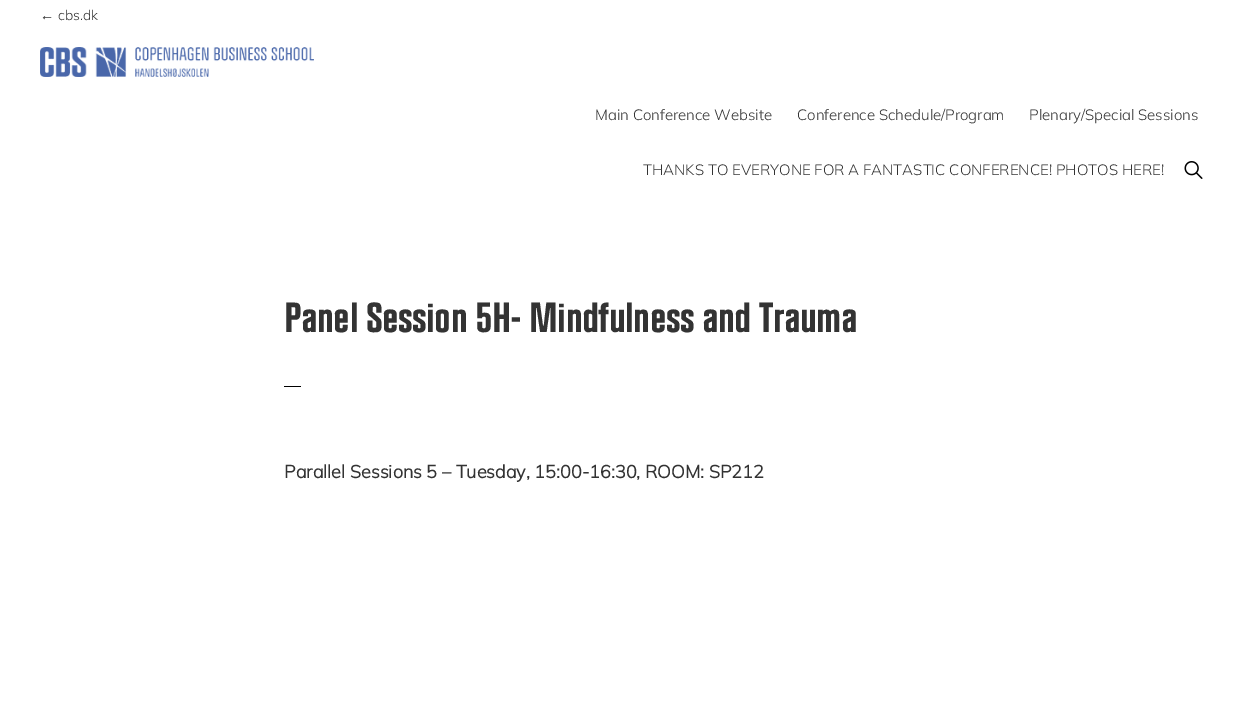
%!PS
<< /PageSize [1248 703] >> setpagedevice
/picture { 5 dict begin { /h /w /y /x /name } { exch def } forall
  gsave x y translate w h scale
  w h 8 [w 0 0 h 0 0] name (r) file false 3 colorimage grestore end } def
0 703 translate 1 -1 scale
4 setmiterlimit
1 setgray
0 0 1248 703 rectfill
/LiberationSans-Regular [14 0 0 -14 0 0] selectfont
0.2 setgray
40 20 moveto (←) show
/Mulish-Light [14 0 0 -14 0 0] selectfont
58 20 moveto (cbs.dk) show
(img1.rgb) 40 47 274 30 picture
/Mulish-Light [15 0 0 -15 0 0] selectfont
595 120 moveto (Main Conference Website) show
797 120 moveto (Conference Schedule/Program) show
1029 120 moveto (Plenary/Special Sessions) show
643 175 moveto (THANKS TO EVERYONE FOR A FANTASTIC CONFERENCE! PHOTOS HERE!) show
(img2.rgb) 1184 161 19 18 picture
/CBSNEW-Bold [42 0 0 -42 0 0] selectfont
284 332 moveto -0.5 0 (Panel Session 5H- Mindfulness and Trauma) ashow
0 setgray
284 386 17 1 rectfill
/Mulish-Bold [18 0 0 -18 0 0] selectfont
0.2 setgray
284 478 moveto (Parallel Sessions 5 – Tuesday, 15:00-16:30, ROOM: SP212) show
showpage
